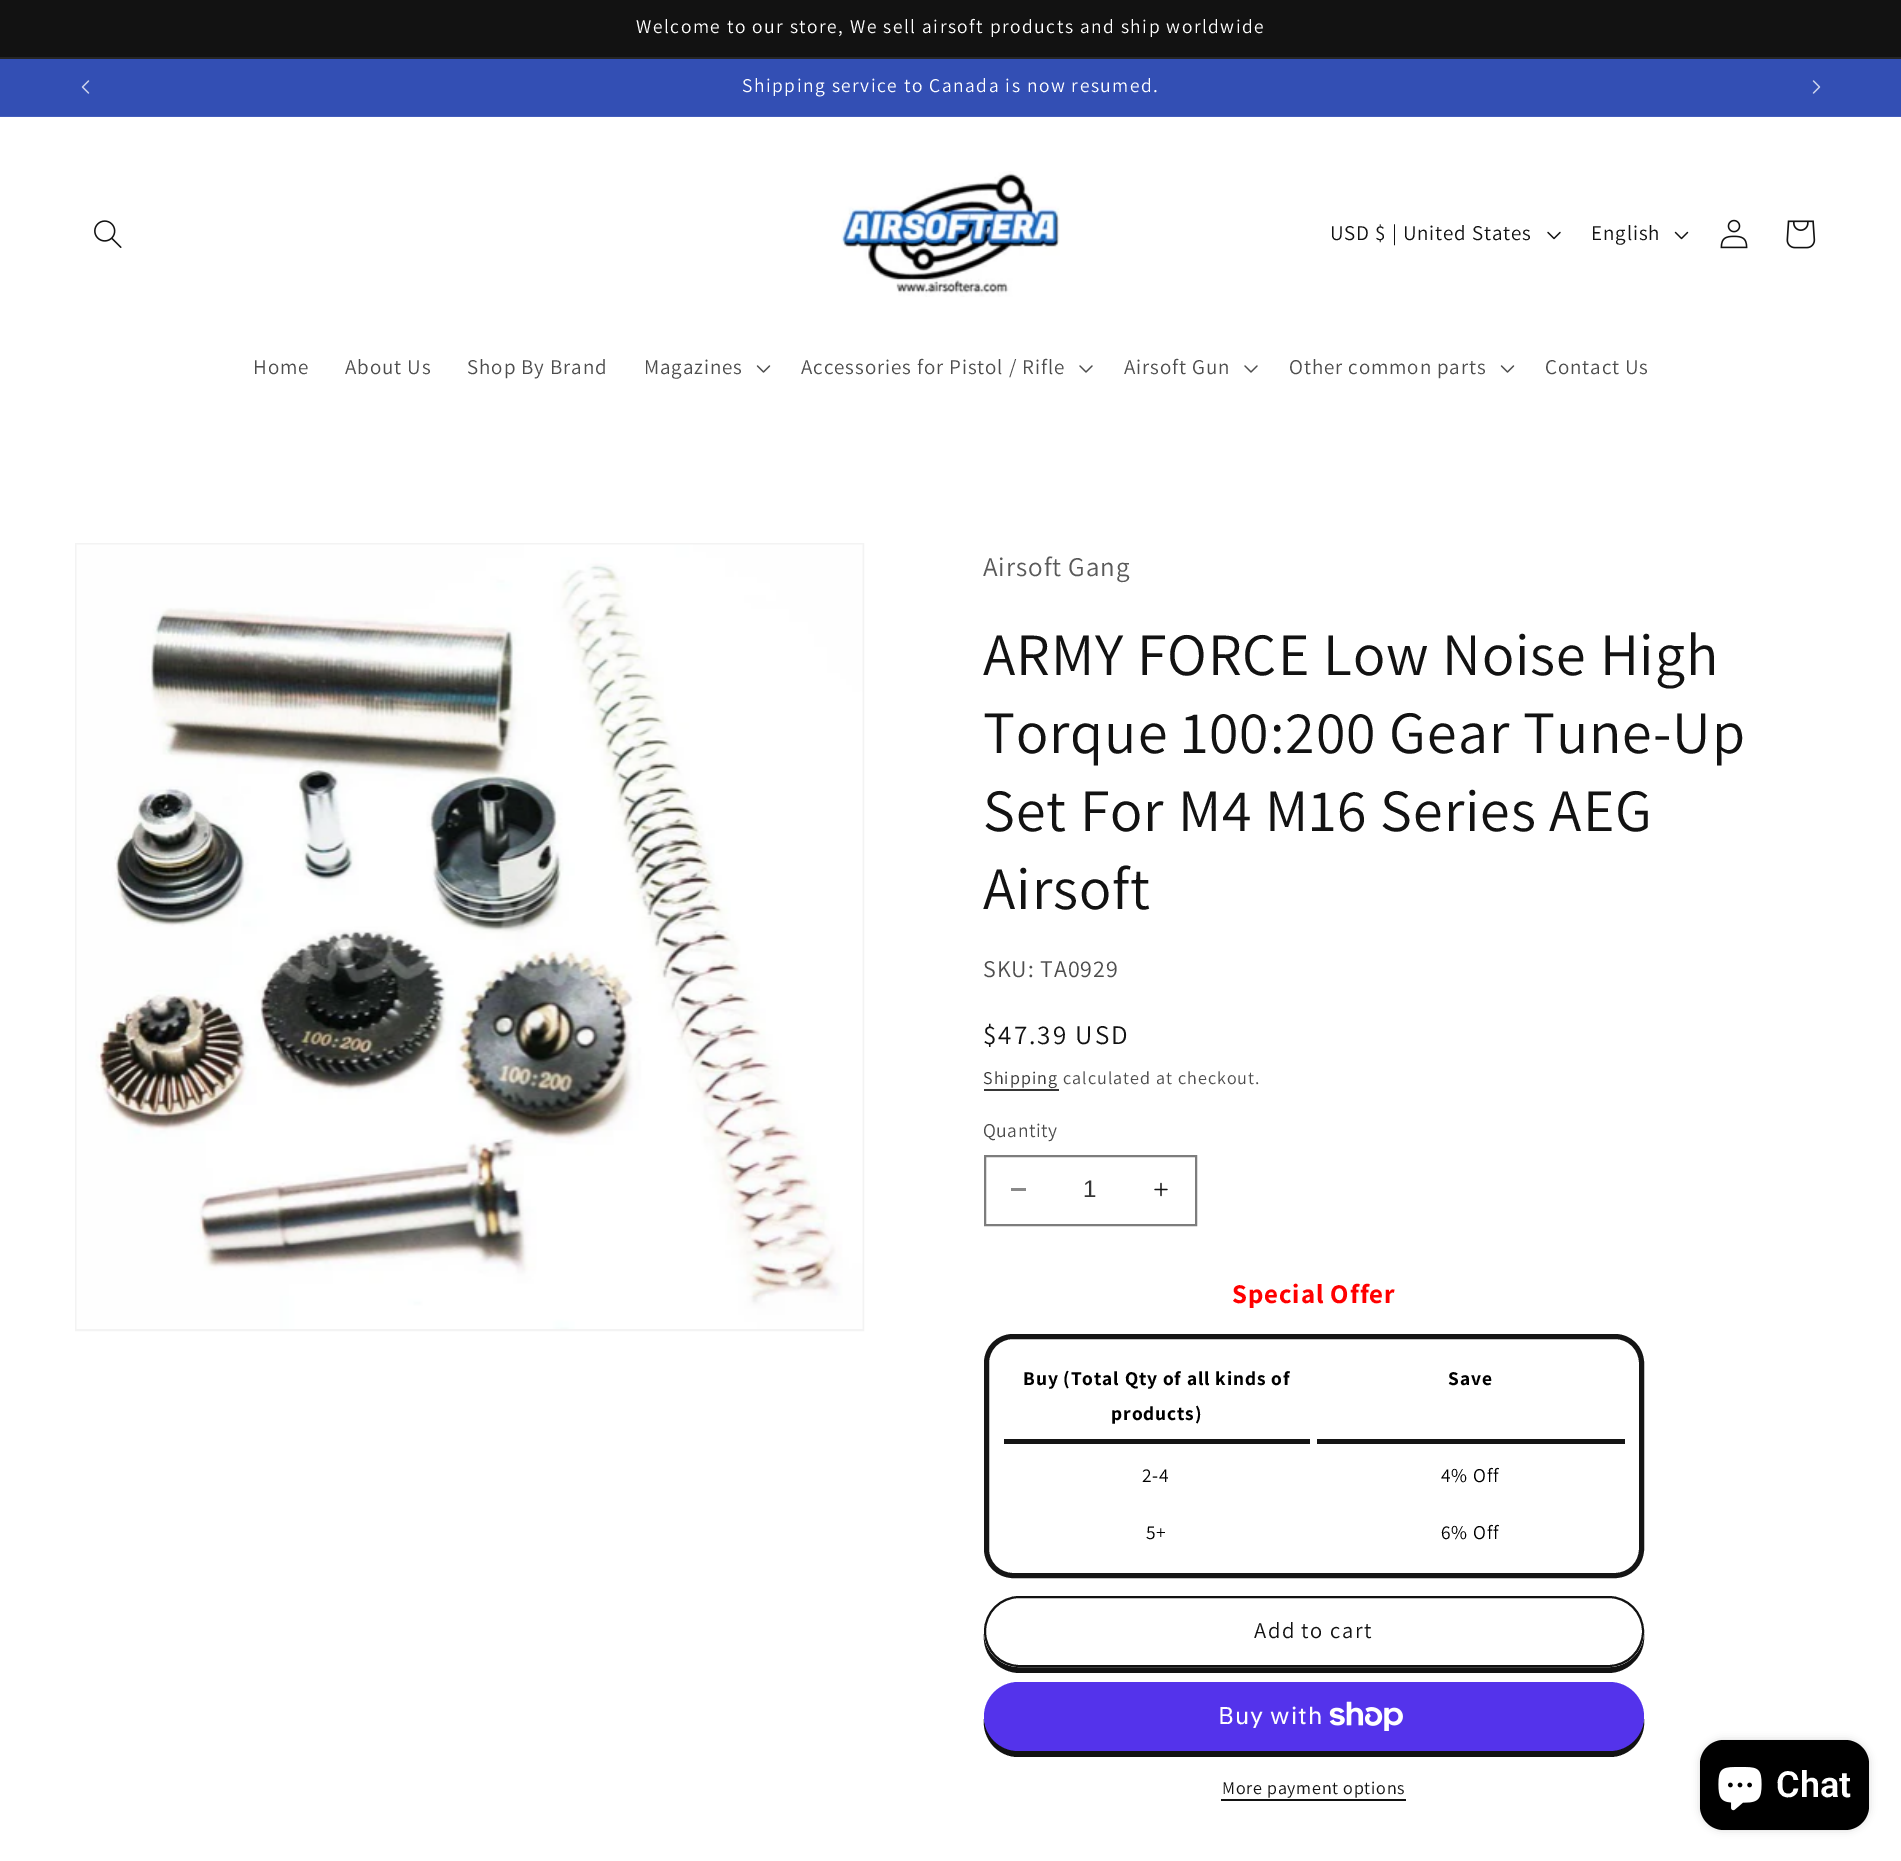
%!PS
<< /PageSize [1901 1861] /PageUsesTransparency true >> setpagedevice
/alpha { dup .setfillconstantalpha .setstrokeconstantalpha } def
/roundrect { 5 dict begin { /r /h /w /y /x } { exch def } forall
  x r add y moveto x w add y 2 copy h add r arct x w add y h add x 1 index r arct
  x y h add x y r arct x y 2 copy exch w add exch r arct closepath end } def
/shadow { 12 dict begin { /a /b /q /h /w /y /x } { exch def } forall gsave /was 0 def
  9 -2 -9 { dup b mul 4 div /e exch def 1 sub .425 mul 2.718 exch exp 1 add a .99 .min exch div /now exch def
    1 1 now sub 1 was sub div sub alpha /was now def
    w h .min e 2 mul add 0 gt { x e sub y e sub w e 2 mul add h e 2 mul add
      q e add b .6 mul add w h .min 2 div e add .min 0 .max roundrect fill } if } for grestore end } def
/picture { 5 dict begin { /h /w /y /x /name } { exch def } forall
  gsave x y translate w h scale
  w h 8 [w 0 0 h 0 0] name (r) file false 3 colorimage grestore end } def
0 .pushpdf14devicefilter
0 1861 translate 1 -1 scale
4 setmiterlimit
1 setgray
0 0 1901 1861 rectfill
0.071 setgray
0 0 1901 57 rectfill
0.145 setgray
0 57 1901 2 rectfill
/Assistant-Regular [19.5 0 0 -19.5 0 0] selectfont
1 setgray
636 33 moveto 1.5 0 (Welcome to our store, We sell airsoft products and ship worldwide) ashow
0.2 0.31 0.706 setrgbcolor
0 59 1901 57 rectfill
0.263 0.365 0.729 setrgbcolor
0 116 1901 1 rectfill
(img1.rgb) 81 80 9 14 picture
1 setgray
742 92 moveto 1.5 0 (Shipping service to Canada is now resumed.) ashow
(img2.rgb) 1812 80 9 14 picture
(img3.rgb) 94 220 28 28 picture
(img4.rgb) 841 171 219 126 picture
/Assistant-Regular [21 0 0 -21 0 0] selectfont
0.071 setgray
1330 240 moveto 0.9 0 (USD $ | United States) ashow
(img5.rgb) 1547 231 14 9 picture
1591 240 moveto 0.9 0 (English) ashow
(img6.rgb) 1674 231 15 9 picture
(img7.rgb) 1720 219 28 30 picture
(img8.rgb) 1786 220 30 29 picture
0.302 setgray
253 374 moveto 0.9 0 (Home) ashow
345 374 moveto 0.9 0 (About Us) ashow
467 374 moveto 0.9 0 (Shop By Brand) ashow
644 374 moveto 0.9 0 (Magazines) ashow
(img9.rgb) 756 365 15 8 picture
801 374 moveto 0.9 0 (Accessories for Pistol / Rifle) ashow
(img10.rgb) 1079 365 14 8 picture
1124 374 moveto 0.9 0 (Airsoft Gun) ashow
(img10.rgb) 1244 365 14 8 picture
1289 374 moveto 0.9 0 (Other common parts) ashow
(img9.rgb) 1500 365 15 8 picture
1545 374 moveto 0.9 0 (Contact Us) ashow
0.953 setgray
2 setlinewidth
76 544 787 786 rectstroke
(img11.rgb) 76 544 787 785 picture
/Assistant-Regular [27 0 0 -27 0 0] selectfont
0.349 setgray
983 576 moveto 0.9 0 (Airsoft Gang) ashow
/Assistant-Regular [60 0 0 -60 0 0] selectfont
0.071 setgray
983 675 moveto 0.9 0 (ARMY FORCE Low Noise High) ashow
983 753 moveto 0.9 0 (Torque 100:200 Gear Tune-Up) ashow
983 831 moveto 0.9 0 (Set For M4 M16 Series AEG) ashow
983 909 moveto 0.9 0 (Airsoft) ashow
/Assistant-Regular [24 0 0 -24 0 0] selectfont
0.302 setgray
983 977 moveto 0.9 0 (SKU: TA0929) ashow
/Assistant-Regular [27 0 0 -27 0 0] selectfont
0.071 setgray
983 1044 moveto 2 0 ($47.39 USD) ashow
/Assistant-Regular [18 0 0 -18 0 0] selectfont
0.212 setgray
983 1084 moveto 1.05 0 (Shipping) ashow
984 1089 75 2 rectfill
0.302 setgray
1063 1084 moveto 1.05 0 (calculated at checkout.) ashow
/Assistant-Regular [19.5 0 0 -19.5 0 0] selectfont
983 1137 moveto 0.5 0 (Quantity) ashow
0.537 setgray
1011 1188 15 3 rectfill
(img12.rgb) 1154 1182 14 15 picture
0.49 setgray
985 1156 211 69 rectstroke
/LiberationSans-Regular [24 0 0 -24 0 0] selectfont
0.212 setgray
1083 1197 moveto (1) show
/Assistant-Bold [27 0 0 -27 0 0] selectfont
1 0 0 setrgbcolor
1232 1303 moveto 0.9 0 (Special Offer) ashow
0.082 setgray
5 setlinewidth
986.5 1336.5 655 239 26.5 roundrect stroke
1004 1439 306 5 rectfill
/Assistant-Bold [19.5 0 0 -19.5 0 0] selectfont
0 setgray
1023 1385 moveto 0.9 0 (Buy \(Total Qty of all kinds of) ashow
1111 1420 moveto 0.9 0 (products\)) ashow
0.082 setgray
1317 1439 308 5 rectfill
0 setgray
1448 1385 moveto 0.9 0 (Save) ashow
/Assistant-Regular [19.5 0 0 -19.5 0 0] selectfont
1142 1482 moveto 0.9 0 (2-4) ashow
1441 1482 moveto 0.9 0 (4% Off) ashow
1146 1539 moveto 0.9 0 (5+) ashow
1441 1539 moveto 0.9 0 (6% Off) ashow
0.071 setgray
newpath 984 1634 moveto 982 1655 999 1673 1020 1673 curveto 1608 1673 lineto 1629 1673 1646 1655 1644 1634 curveto 1642 1652 1627 1666 1609 1666 curveto 1019 1666 lineto 1001 1666 986 1652 984 1634 curveto closepath fill
1 setgray
984 1596 660 71 35.5 roundrect fill
2 setlinewidth
985 1597 658 69 34.5 roundrect stroke
0.071 setgray
985 1597 658 69 34.5 roundrect stroke
/Assistant-Regular [22.5 0 0 -22.5 0 0] selectfont
1254 1638 moveto 1.5 0 (Add to cart) ashow
newpath 984 1719 moveto 982 1739 998 1757 1018 1757 curveto 1610 1757 lineto 1630 1757 1646 1739 1644 1719 curveto 1642 1737 1627 1750 1610 1750 curveto 1018 1750 lineto 1001 1750 986 1737 984 1719 curveto closepath fill
0.329 0.2 0.922 setrgbcolor
984 1682 660 69 34.5 roundrect fill
/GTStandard-Regular [24 0 0 -24 0 0] selectfont
1 setgray
1218 1724 moveto 0.9 0 (Buy with) ashow
(img13.rgb) 1329 1701 74 30 picture
/Assistant-Regular [18 0 0 -18 0 0] selectfont
0.071 setgray
1222 1794 moveto 0.75 0 (More payment options) ashow
1221 1799 185 2 rectfill
0 setgray
1700 1740 169 90 24 4 0.15 shadow
1700 1740 169 90 24 roundrect fill
(img14.rgb) 1718 1767 44 44 picture
/Roboto-SemiBold [36 0 0 -36 0 0] selectfont
1 setgray
1776 1797 moveto (Chat) show
.poppdf14devicefilter showpage
